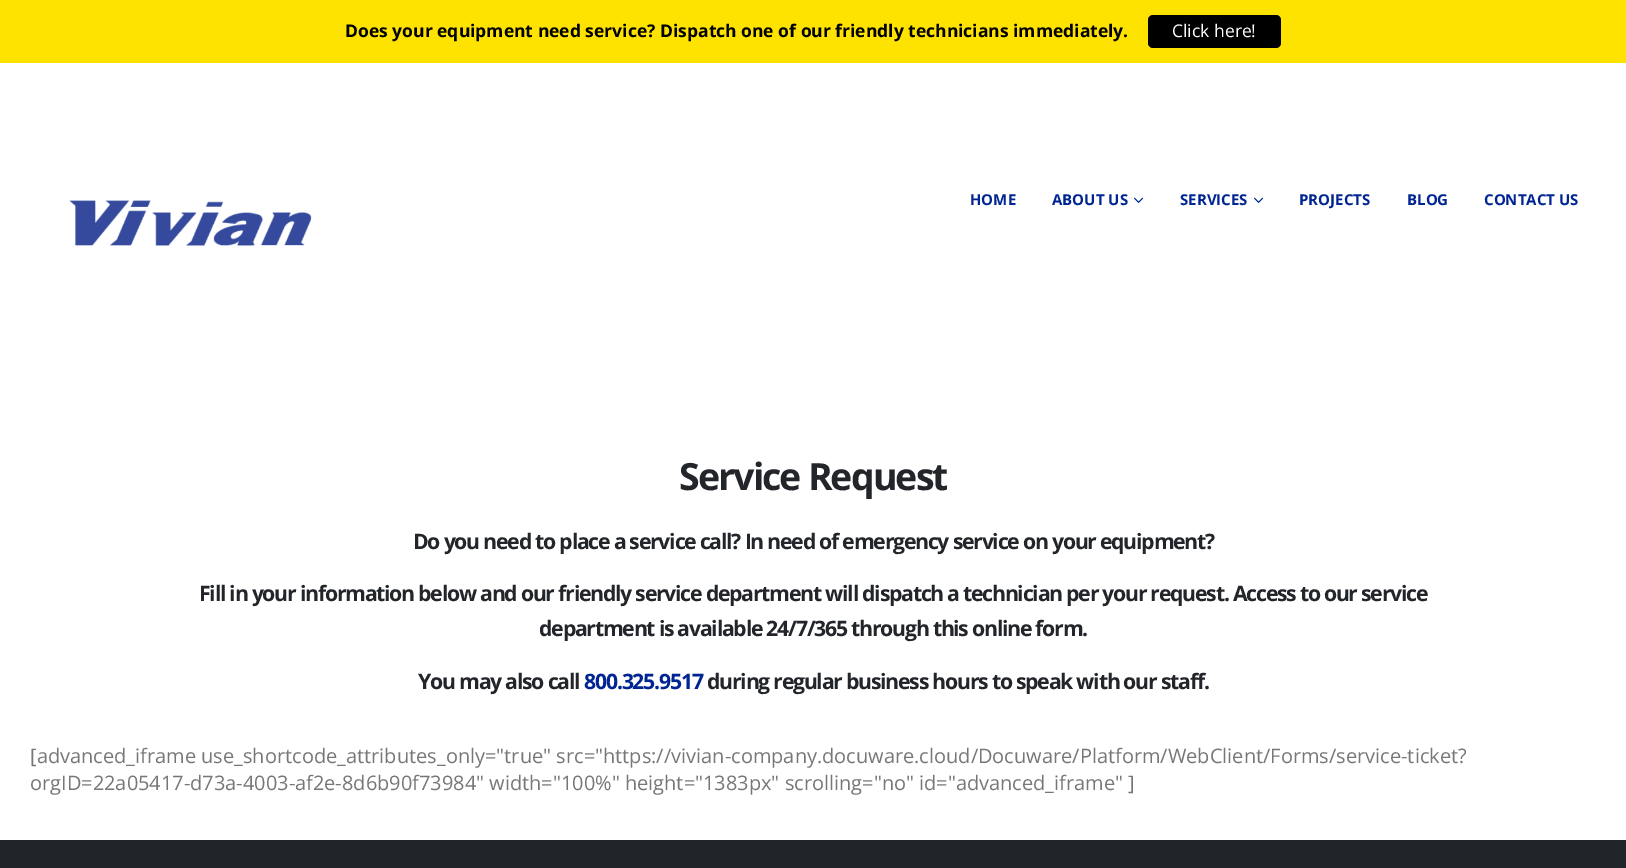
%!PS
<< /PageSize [1626 868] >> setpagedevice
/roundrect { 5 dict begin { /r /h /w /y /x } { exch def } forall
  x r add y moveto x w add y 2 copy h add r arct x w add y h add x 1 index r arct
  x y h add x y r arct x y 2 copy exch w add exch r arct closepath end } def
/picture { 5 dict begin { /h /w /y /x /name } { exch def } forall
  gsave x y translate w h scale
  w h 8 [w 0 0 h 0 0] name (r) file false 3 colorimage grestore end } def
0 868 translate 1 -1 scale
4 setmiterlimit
1 setgray
0 0 1626 868 rectfill
1 0.89 0 setrgbcolor
0 0 1626 63 rectfill
/OpenSans-Bold [17.5 0 0 -17.5 0 0] selectfont
0 setgray
345 37 moveto (Does your equipment need service? Dispatch one of our friendly technicians immediately.) show
1148 15 133 33 5 roundrect fill
/OpenSans-Regular [17.5 0 0 -17.5 0 0] selectfont
1 setgray
1172 37 moveto (Click here!) show
(img1.rgb) 69 200 243 46 picture
/OpenSans-Bold [15 0 0 -15 0 0] selectfont
0 0.145 0.573 setrgbcolor
970 205 moveto (HOME) show
1052 205 moveto (ABOUT US) show
(img2.rgb) 1134 197 10 6 picture
1180 205 moveto (SERVICES) show
(img2.rgb) 1254 197 10 6 picture
1299 205 moveto (PROJECTS) show
1407 205 moveto (BLOG) show
1484 205 moveto (CONTACT US) show
/OpenSans-Bold [37.5 0 0 -37.5 0 0] selectfont
0.133 0.145 0.161 setrgbcolor
679 490 moveto -1.9 0 (Service Request) ashow
/OpenSans-Bold [21.25 0 0 -21.25 0 0] selectfont
413 549 moveto -1.25 0 (Do you need to place a service call? In need of emergency service on your equipment?) ashow
199 601 moveto -1.25 0 (Fill in your information below and our friendly service department will dispatch a technician per your request. Access to our service) ashow
539 636 moveto -1.25 0 (department is available 24/7/365 through this online form.) ashow
418 689 moveto -1.25 0 (You may also call) ashow
0 0.145 0.573 setrgbcolor
584 689 moveto -1.25 0 (800.325.9517) ashow
0.133 0.145 0.161 setrgbcolor
707 689 moveto -1.25 0 (during regular business hours to speak with our staff.) ashow
/OpenSans-Regular [20 0 0 -20 0 0] selectfont
0.467 setgray
30 763 moveto ([advanced_iframe use_shortcode_attributes_only="true" src="https://vivian-company.docuware.cloud/Docuware/Platform/WebClient/Forms/service-ticket?) show
30 790 moveto (orgID=22a05417-d73a-4003-af2e-8d6b90f73984" width="100%" height="1383px" scrolling="no" id="advanced_iframe" ]) show
0.129 0.145 0.161 setrgbcolor
0 840 1626 28 rectfill
showpage
